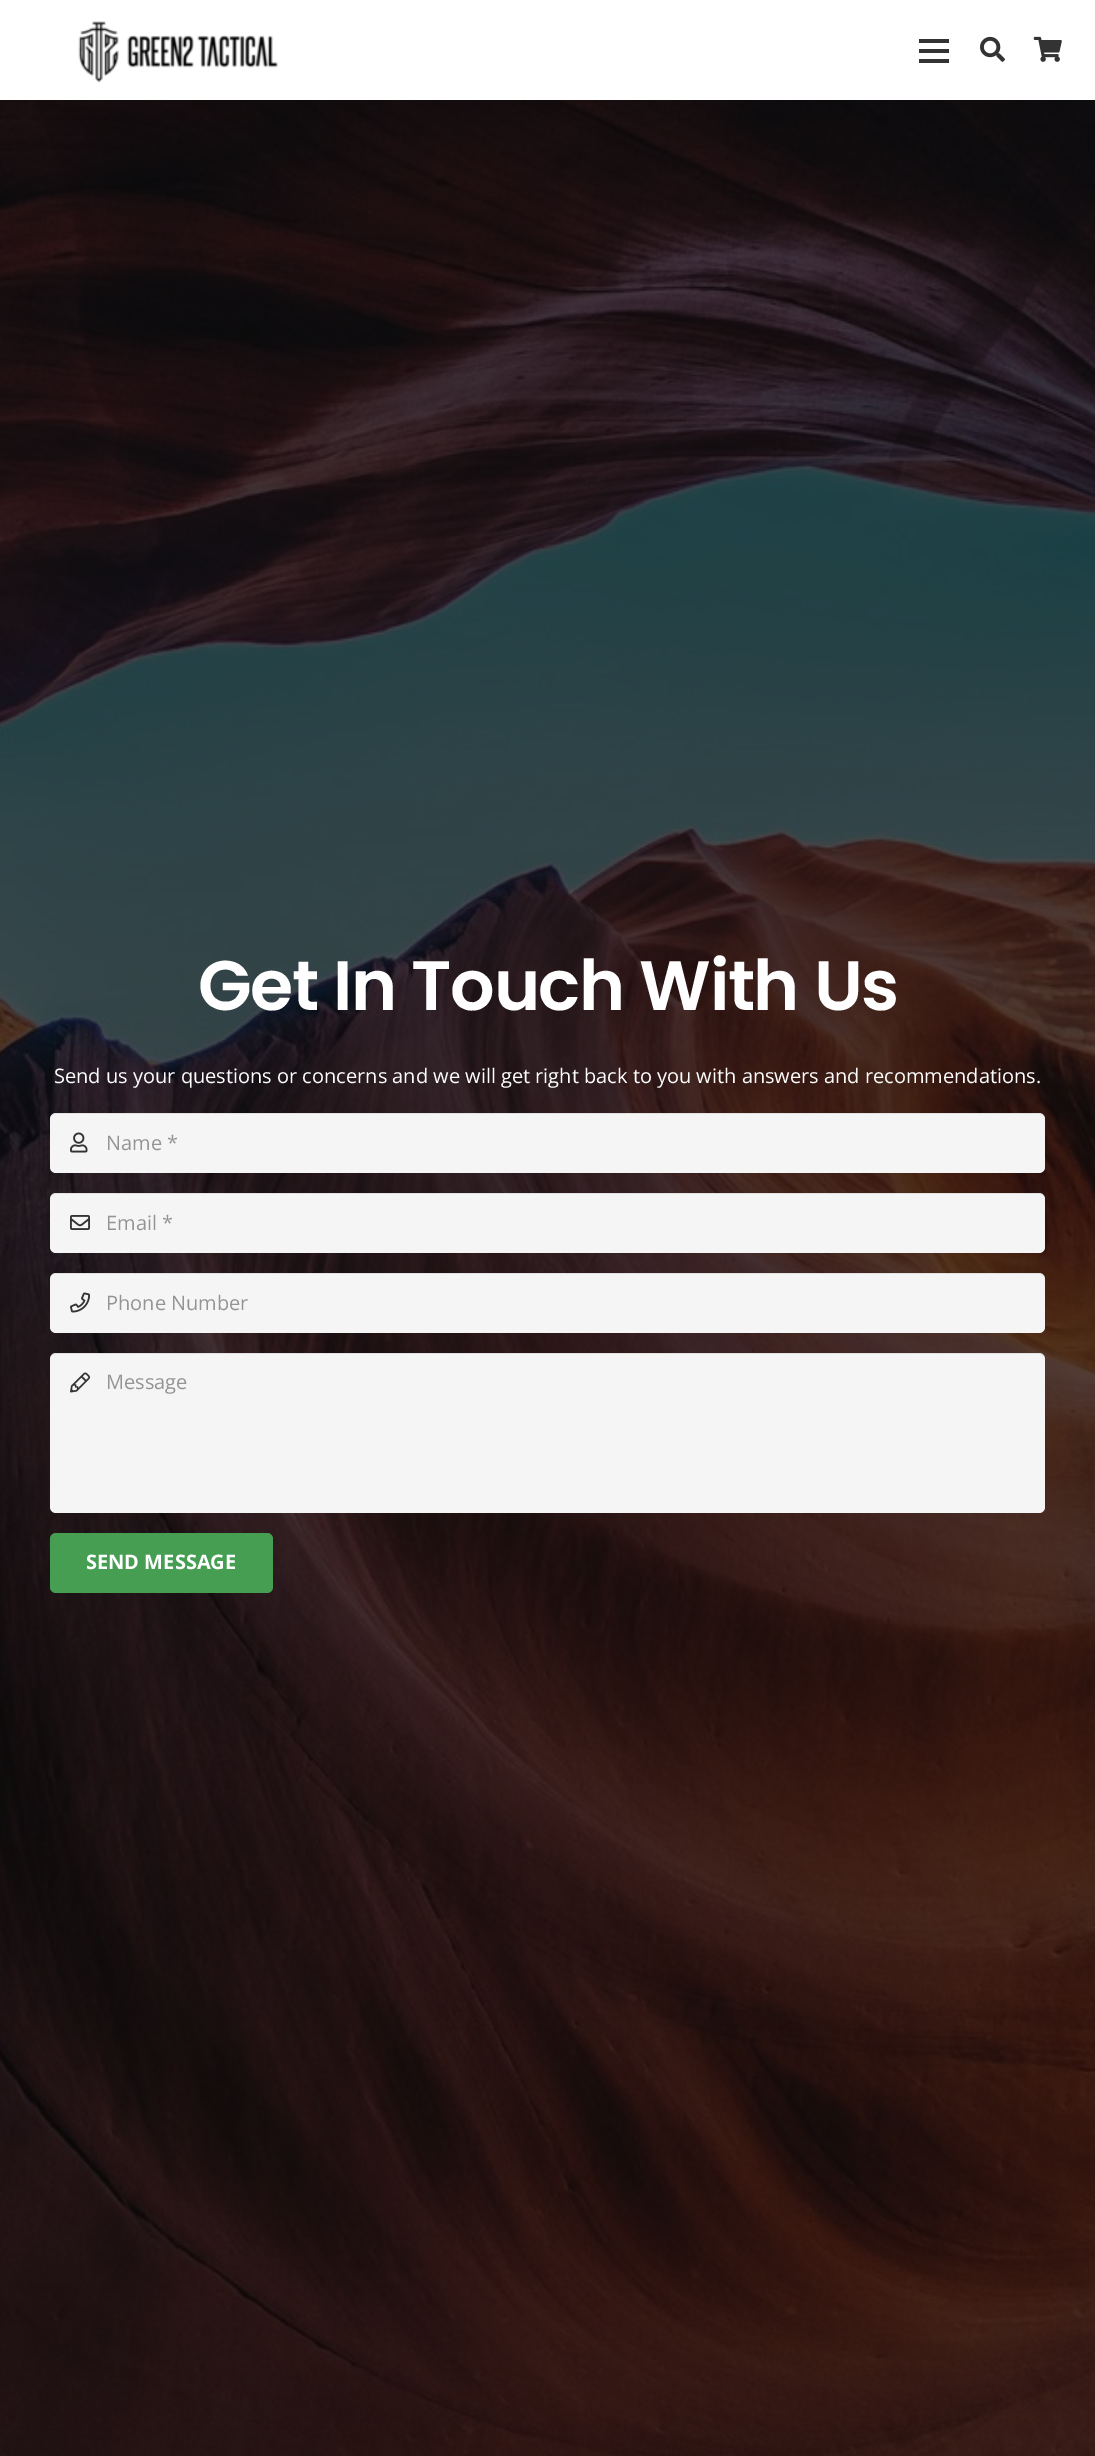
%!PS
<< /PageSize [1095 2456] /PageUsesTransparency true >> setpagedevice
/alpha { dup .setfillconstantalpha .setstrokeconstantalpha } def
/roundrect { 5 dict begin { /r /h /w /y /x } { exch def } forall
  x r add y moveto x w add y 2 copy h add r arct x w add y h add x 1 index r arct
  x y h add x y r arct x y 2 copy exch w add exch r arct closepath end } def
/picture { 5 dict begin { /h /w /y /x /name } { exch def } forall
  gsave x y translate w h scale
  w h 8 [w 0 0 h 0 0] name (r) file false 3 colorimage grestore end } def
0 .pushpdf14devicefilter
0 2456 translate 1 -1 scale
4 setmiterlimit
1 setgray
0 0 1095 2456 rectfill
(img1.rgb) 78 21 200 62 picture
0.2 setgray
919 49 30 4 rectfill
919 39 30 4 rectfill
919 59 30 4 rectfill
(img2.rgb) 980 36 25 26 picture
(img3.rgb) 1033 36 29 26 picture
(img4.rgb) 0 100 1095 2356 picture
/Poppins-SemiBold [70 0 0 -70 0 0] selectfont
1 setgray
198 1010 moveto -1.4 0 (Get In Touch With Us) ashow
/OpenSans-Regular [20 0 0 -20 0 0] selectfont
54 1083 moveto (Send us your questions or concerns and we will get right back to you with answers and recommendations.) show
0.961 setgray
50 1113 995 60 6 roundrect fill
(img5.rgb) 70 1132 18 21 picture
0.08 alpha
0 setgray
newpath 56 1114 moveto 1039 1114 lineto 1042 1114 1045 1116 1045 1120 curveto 1045 1119 lineto 1045 1116 1042 1113 1039 1113 curveto 56 1113 lineto 53 1113 50 1116 50 1119 curveto 50 1120 lineto 50 1116 53 1114 56 1114 curveto closepath fill
1 alpha
0.58 setgray
106 1150 moveto (Name *) show
0.961 setgray
50 1193 995 60 6 roundrect fill
(img6.rgb) 70 1215 20 15 picture
0.08 alpha
0 setgray
newpath 56 1194 moveto 1039 1194 lineto 1042 1194 1045 1196 1045 1200 curveto 1045 1199 lineto 1045 1196 1042 1193 1039 1193 curveto 56 1193 lineto 53 1193 50 1196 50 1199 curveto 50 1200 lineto 50 1196 53 1194 56 1194 curveto closepath fill
1 alpha
0.58 setgray
106 1230 moveto (Email *) show
0.961 setgray
50 1273 995 60 6 roundrect fill
(img7.rgb) 70 1292 20 21 picture
0.08 alpha
0 setgray
newpath 56 1274 moveto 1039 1274 lineto 1042 1274 1045 1276 1045 1280 curveto 1045 1279 lineto 1045 1276 1042 1273 1039 1273 curveto 56 1273 lineto 53 1273 50 1276 50 1279 curveto 50 1280 lineto 50 1276 53 1274 56 1274 curveto closepath fill
1 alpha
0.58 setgray
106 1310 moveto (Phone Number) show
0.961 setgray
50 1353 995 160 6 roundrect fill
(img8.rgb) 70 1372 20 21 picture
0.08 alpha
0 setgray
newpath 56 1354 moveto 1039 1354 lineto 1042 1354 1045 1356 1045 1360 curveto 1045 1359 lineto 1045 1356 1042 1353 1039 1353 curveto 56 1353 lineto 53 1353 50 1356 50 1359 curveto 50 1360 lineto 50 1356 53 1354 56 1354 curveto closepath fill
1 alpha
0.58 setgray
106 1389 moveto (Message) show
0.275 0.62 0.325 setrgbcolor
50 1533 223 60 6 roundrect fill
/OpenSans-Bold [20 0 0 -20 0 0] selectfont
1 setgray
86 1569 moveto (SEND MESSAGE) show
.poppdf14devicefilter showpage
